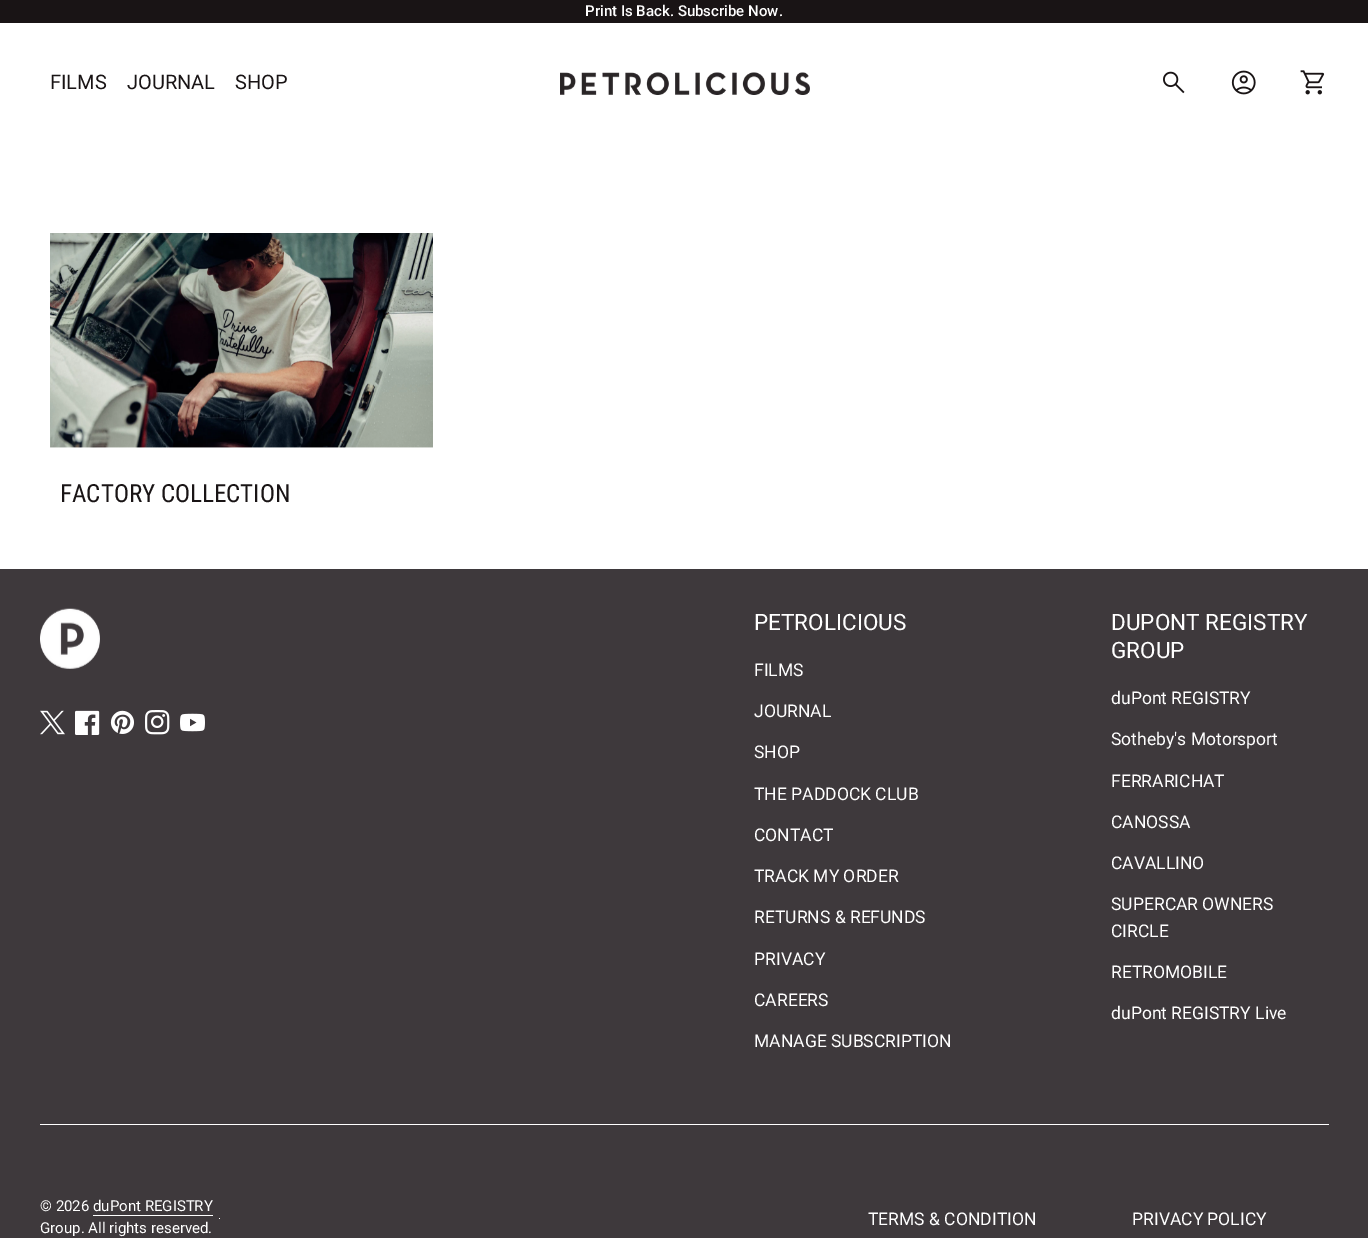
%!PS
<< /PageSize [1368 1238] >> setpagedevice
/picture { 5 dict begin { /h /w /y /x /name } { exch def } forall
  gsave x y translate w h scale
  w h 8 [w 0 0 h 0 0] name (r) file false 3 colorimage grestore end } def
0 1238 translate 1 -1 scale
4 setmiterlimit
1 setgray
0 0 1368 1238 rectfill
0.098 0.078 0.082 setrgbcolor
0 0 1368 23 rectfill
/Roboto-Medium [15 0 0 -15 0 0] selectfont
1 setgray
585 16 moveto (Print Is Back. Subscribe Now.) show
/Roboto-Regular [20 0 0 -20 0 0] selectfont
0.098 0.078 0.082 setrgbcolor
50 89 moveto (FILMS) show
127 89 moveto (JOURNAL) show
235 89 moveto (SHOP) show
(img1.rgb) 560 72 250 23 picture
(img2.rgb) 1163 71 22 23 picture
(img3.rgb) 1231 70 25 25 picture
(img4.rgb) 1300 70 25 25 picture
(img5.rgb) 50 233 383 215 picture
/RobotoCondensed-Regular [25 0 0 -25 0 0] selectfont
60 502 moveto (FACTORY COLLECTION) show
0.243 0.224 0.235 setrgbcolor
0 569 1368 669 rectfill
(img6.rgb) 40 608 60 61 picture
(img7.rgb) 40 710 25 25 picture
(img8.rgb) 75 710 25 25 picture
(img9.rgb) 110 710 24 24 picture
(img10.rgb) 145 710 25 25 picture
(img11.rgb) 180 713 25 19 picture
/Roboto-Regular [22.5 0 0 -22.5 0 0] selectfont
1 setgray
754 630 moveto (PETROLICIOUS) show
/Roboto-Regular [17.5 0 0 -17.5 0 0] selectfont
754 676 moveto (FILMS) show
754 717 moveto (JOURNAL) show
754 758 moveto (SHOP) show
754 800 moveto (THE PADDOCK CLUB) show
754 841 moveto (CONTACT) show
754 882 moveto (TRACK MY ORDER) show
754 923 moveto (RETURNS & REFUNDS) show
754 965 moveto (PRIVACY) show
754 1006 moveto (CAREERS) show
754 1047 moveto (MANAGE SUBSCRIPTION) show
/Roboto-Regular [22.5 0 0 -22.5 0 0] selectfont
1111 630 moveto (DUPONT REGISTRY) show
1111 658 moveto (GROUP) show
/Roboto-Regular [17.5 0 0 -17.5 0 0] selectfont
1111 704 moveto (duPont REGISTRY) show
1111 745 moveto (Sotheby's Motorsport) show
1111 787 moveto (FERRARICHAT) show
1111 828 moveto (CANOSSA) show
1111 869 moveto (CAVALLINO) show
1111 910 moveto (SUPERCAR OWNERS) show
1111 937 moveto (CIRCLE) show
1111 978 moveto (RETROMOBILE) show
1111 1019 moveto (duPont REGISTRY Live) show
40 1124 1289 1 rectfill
/Roboto-Regular [15 0 0 -15 0 0] selectfont
40 1211 moveto (© 2026 duPont REGISTRY) show
219 1218 1 1 rectfill
40 1233 moveto (Group. All rights reserved.) show
93 1215 120 1 rectfill
/Roboto-Regular [17.5 0 0 -17.5 0 0] selectfont
868 1225 moveto (TERMS & CONDITION) show
1132 1225 moveto (PRIVACY POLICY) show
showpage
